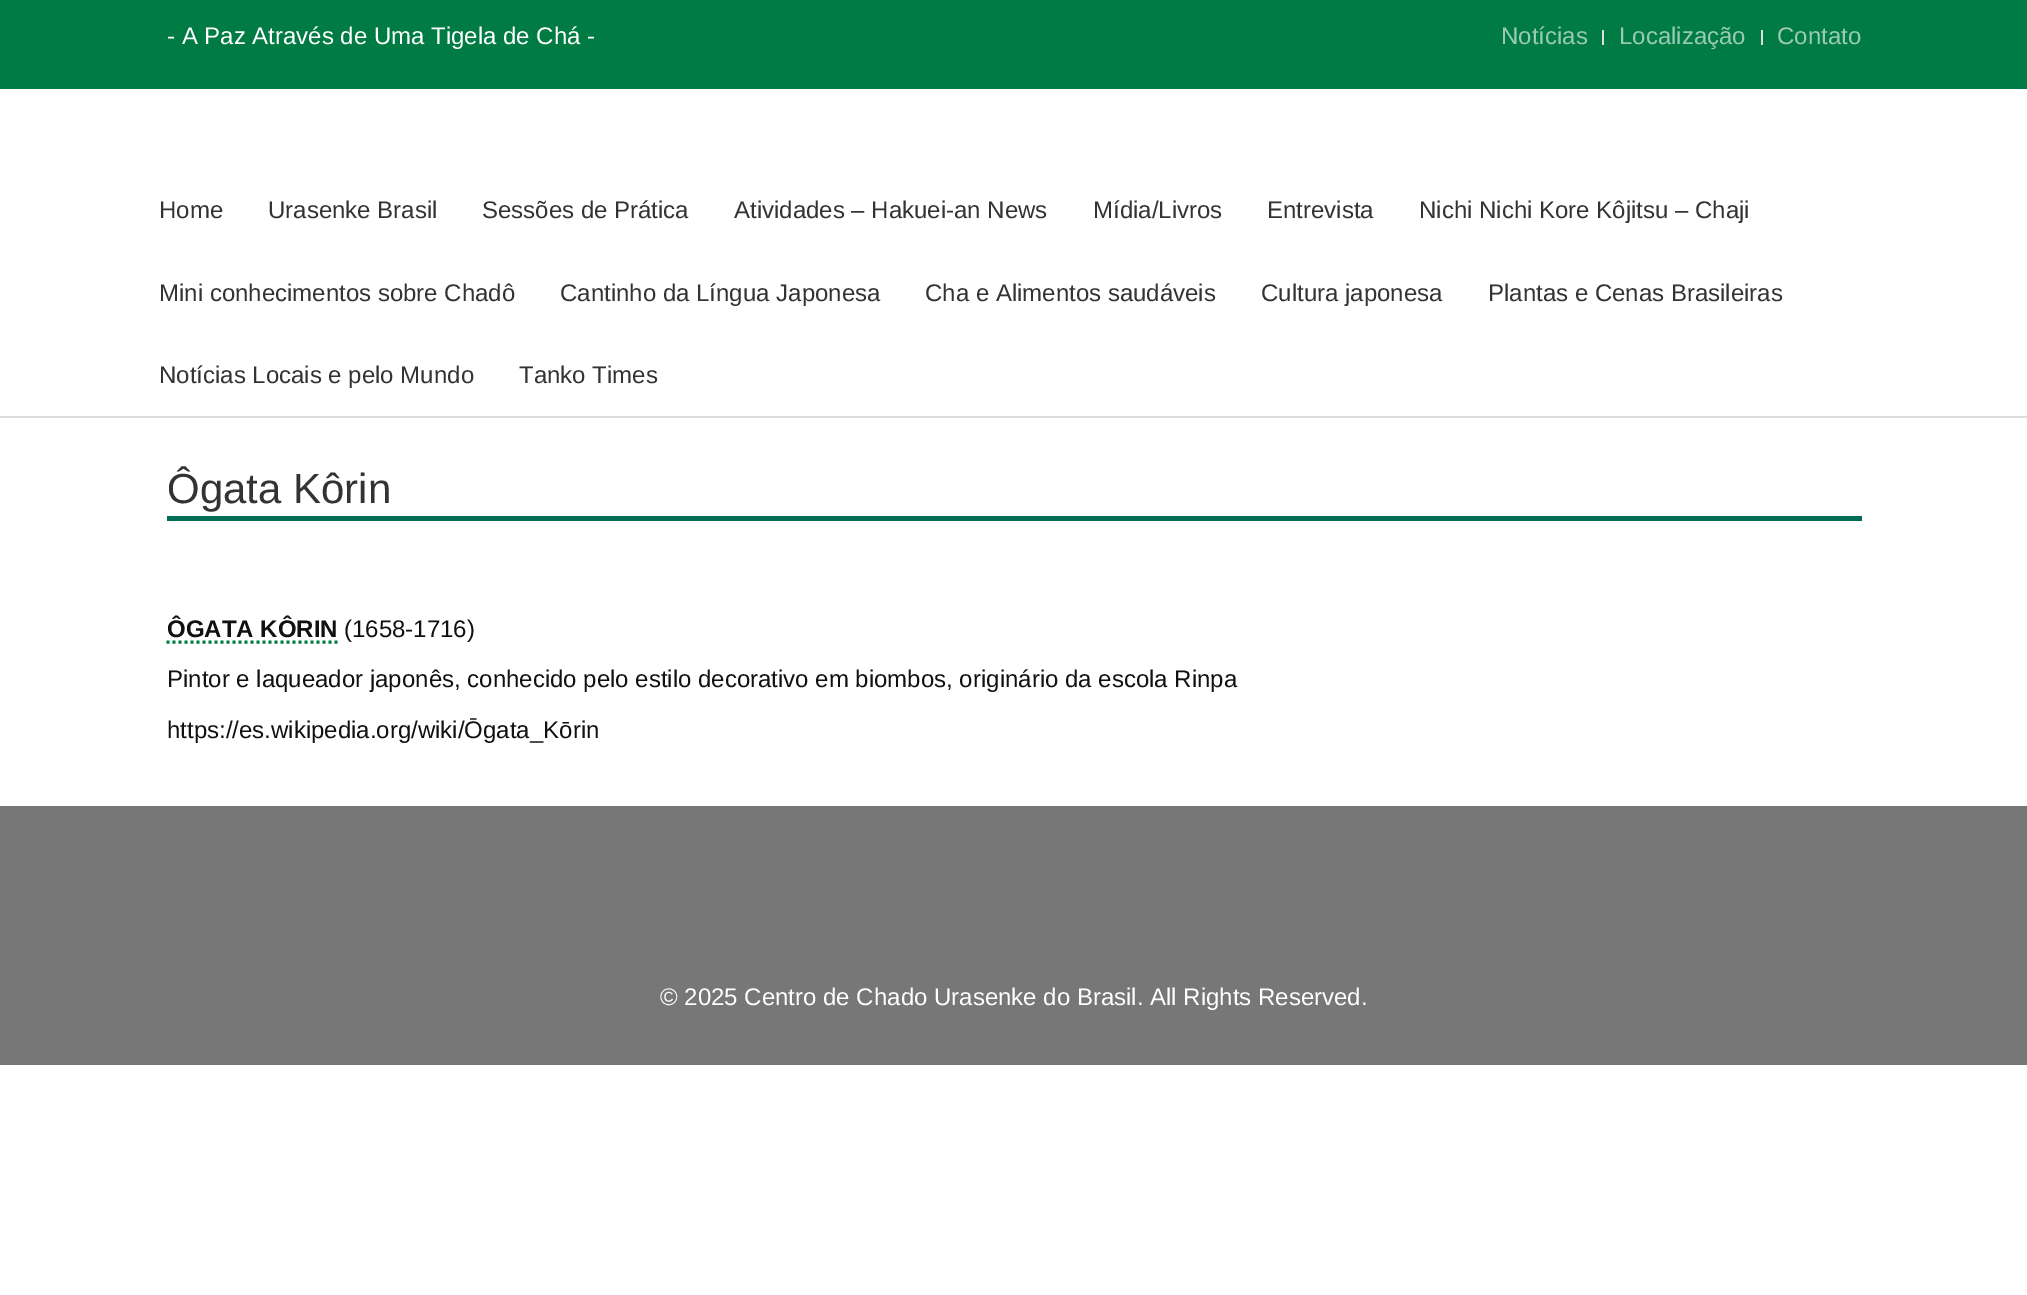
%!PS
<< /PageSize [2027 1295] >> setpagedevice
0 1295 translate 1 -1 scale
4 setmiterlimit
1 setgray
0 0 2027 1295 rectfill
0 0.482 0.263 setrgbcolor
0 0 2027 89 rectfill
/LiberationSans-Regular [24 0 0 -24 0 0] selectfont
1 setgray
167 44 moveto (- A Paz Através de Uma Tigela de Chá -) show
0.6 0.792 0.706 setrgbcolor
1501 44 moveto (Notícias) show
0.867 setgray
1602 30 2 15 rectfill
0.6 0.792 0.706 setrgbcolor
1619 44 moveto (Localização) show
0.867 setgray
1761 30 2 15 rectfill
0.6 0.792 0.706 setrgbcolor
1777 44 moveto (Contato) show
0.2 setgray
159 218 moveto (Home) show
268 218 moveto (Urasenke Brasil) show
482 218 moveto (Sessões de Prática) show
734 218 moveto (Atividades – Hakuei-an News) show
1093 218 moveto (Mídia/Livros) show
1267 218 moveto (Entrevista) show
1419 218 moveto (Nichi Nichi Kore Kôjitsu – Chaji) show
159 301 moveto (Mini conhecimentos sobre Chadô) show
560 301 moveto (Cantinho da Língua Japonesa) show
925 301 moveto (Cha e Alimentos saudáveis) show
1261 301 moveto (Cultura japonesa) show
1488 301 moveto (Plantas e Cenas Brasileiras) show
159 383 moveto (Notícias Locais e pelo Mundo) show
519 383 moveto (Tanko Times) show
0.867 setgray
0 416 2027 2 rectfill
0 0.431 0.329 setrgbcolor
167 516 1695 5 rectfill
/LiberationSans-Regular [42 0 0 -42 0 0] selectfont
0.2 setgray
167 503 moveto (Ôgata Kôrin) show
/LiberationSans-Bold [24 0 0 -24 0 0] selectfont
0.067 setgray
167 637 moveto (ÔGATA KÔRIN) show
0 0.482 0.263 setrgbcolor
3 setlinewidth
[3 3] 0 setdash
newpath 166.5 642 moveto 337.5 642 lineto stroke
/LiberationSans-Regular [24 0 0 -24 0 0] selectfont
0.067 setgray
344 637 moveto (\(1658-1716\)) show
167 687 moveto (Pintor e laqueador japonês, conhecido pelo estilo decorativo em biombos, originário da escola Rinpa) show
167 738 moveto (https://es.wikipedia.org/wiki/Ōgata_Kōrin) show
0.467 setgray
0 806 2027 259 rectfill
1 setgray
660 1005 moveto (© 2025 Centro de Chado Urasenke do Brasil. All Rights Reserved.) show
showpage
